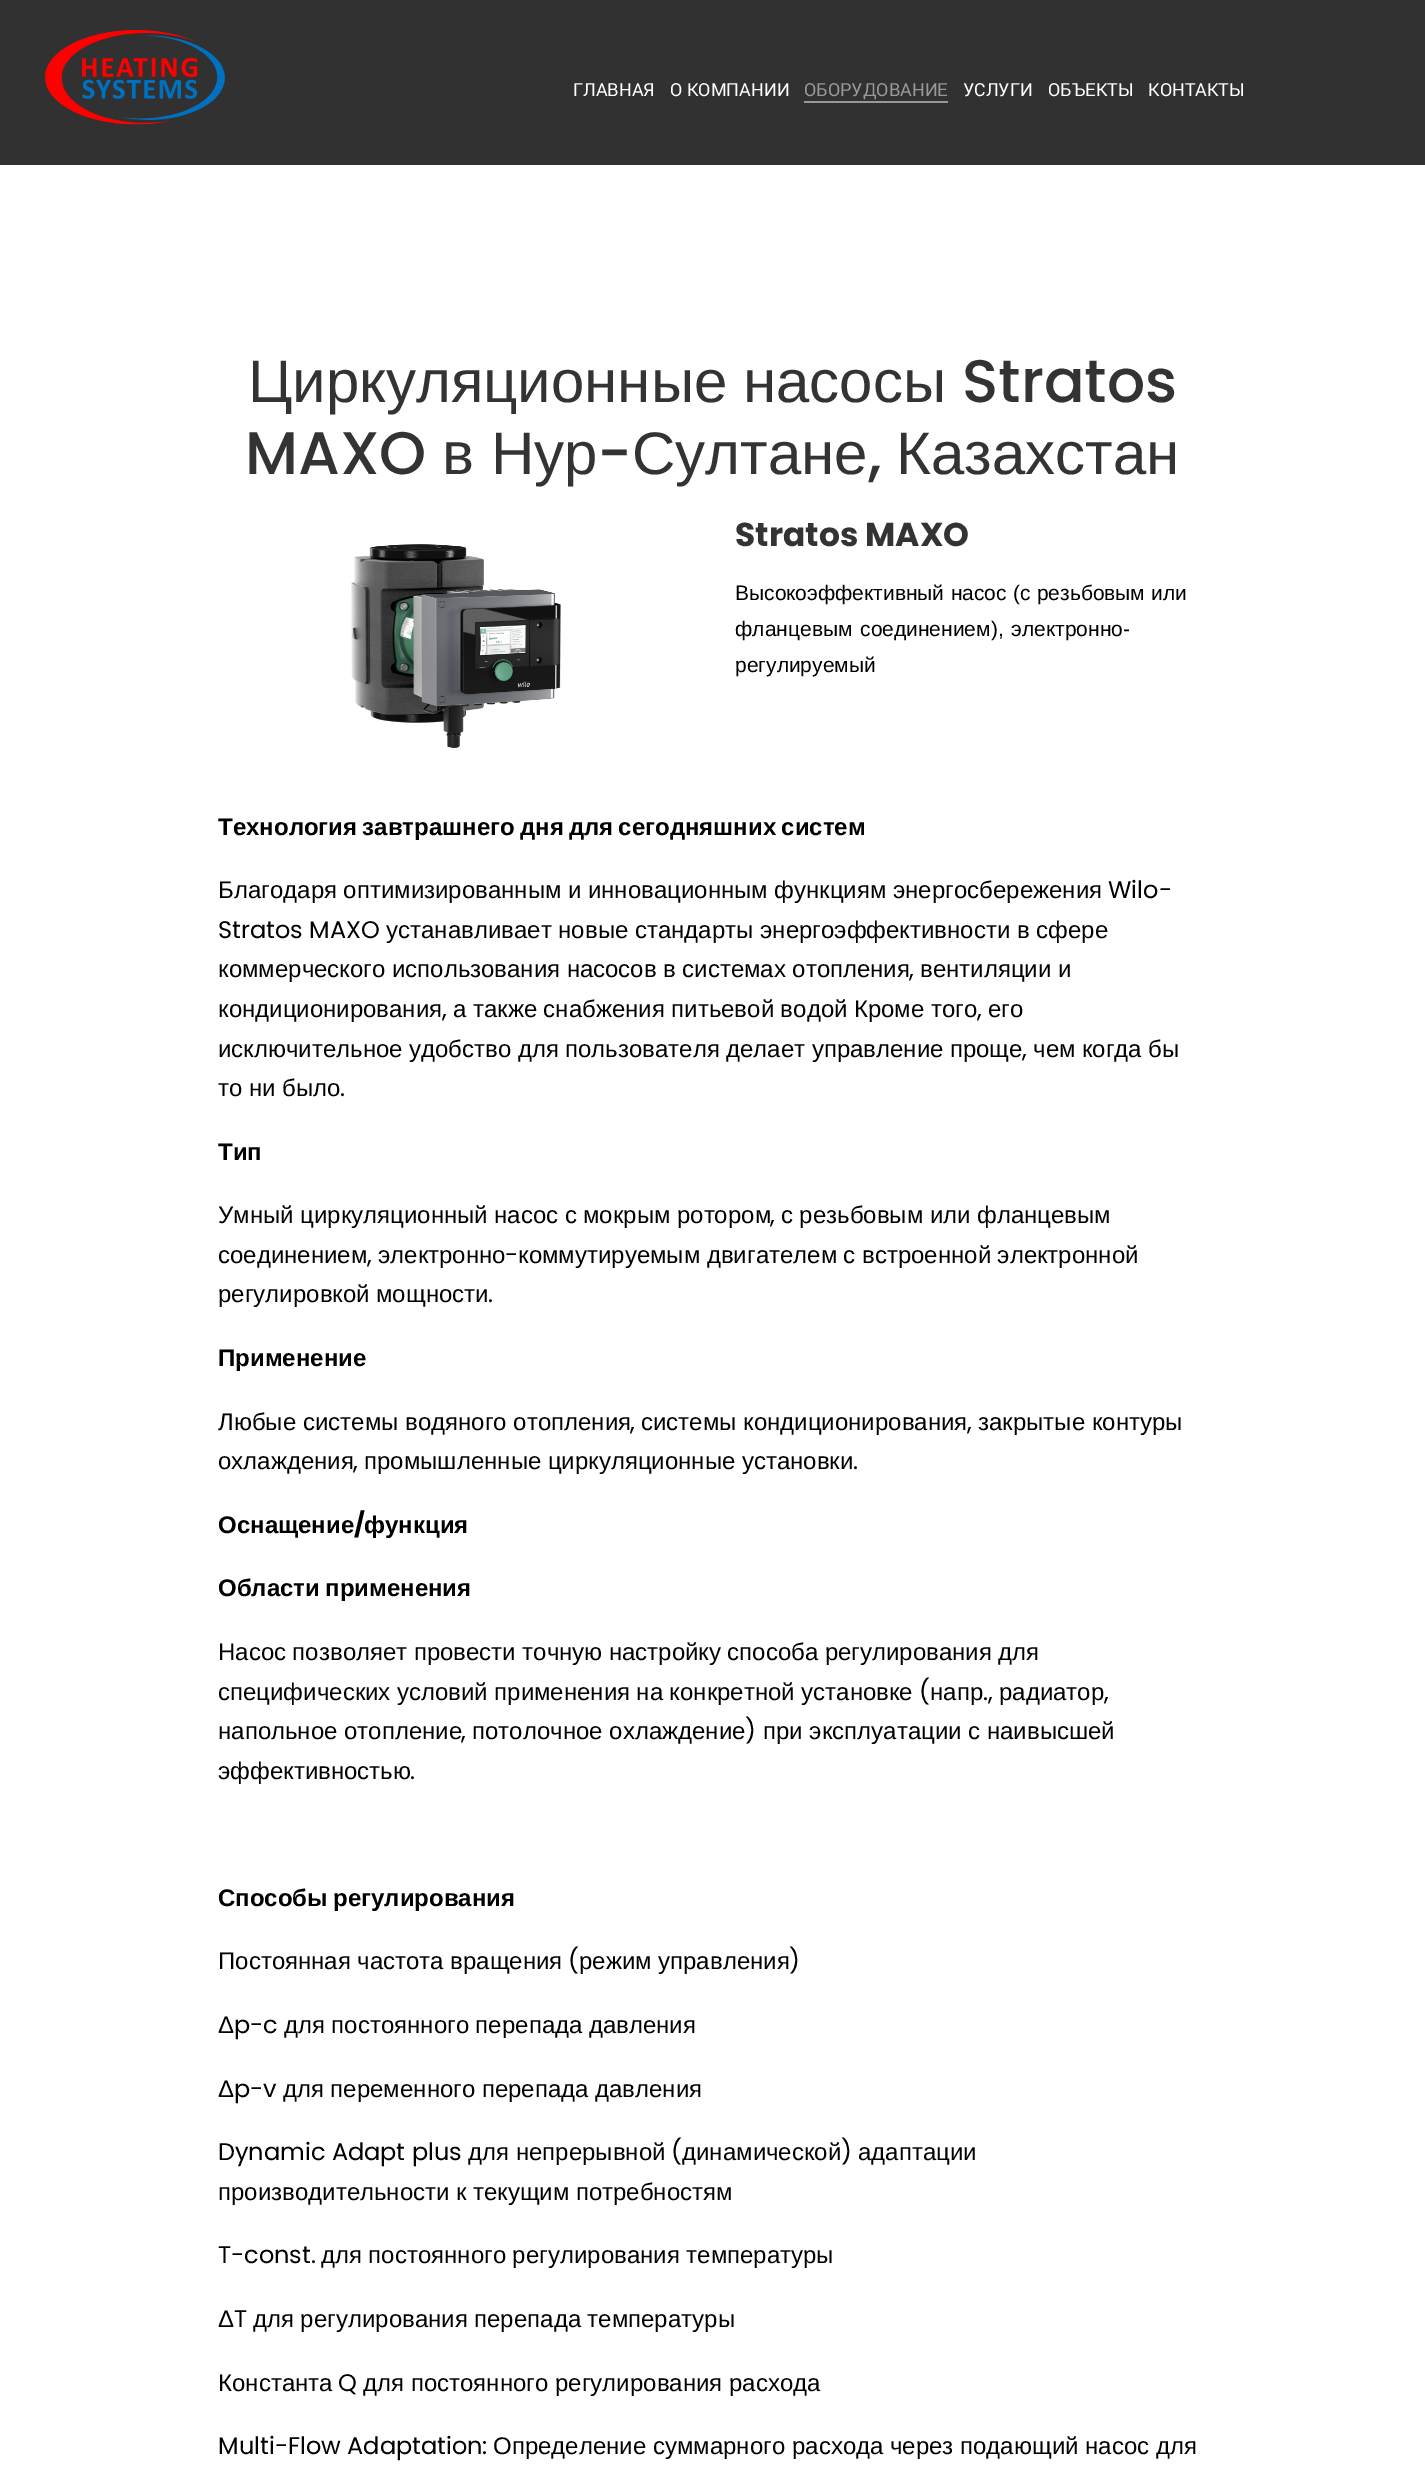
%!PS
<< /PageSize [1425 2483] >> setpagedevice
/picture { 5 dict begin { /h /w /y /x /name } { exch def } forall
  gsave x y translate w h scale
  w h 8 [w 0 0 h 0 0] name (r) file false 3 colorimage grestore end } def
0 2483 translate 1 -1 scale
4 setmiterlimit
1 setgray
0 0 1425 2483 rectfill
0.192 setgray
0 0 1425 165 rectfill
(img1.rgb) 45 30 180 95 picture
/Roboto-Regular [18 0 0 -18 0 0] selectfont
1 setgray
573 96 moveto (ГЛАВНАЯ) show
670 96 moveto (О КОМПАНИИ) show
0.596 setgray
804 96 moveto (ОБОРУДОВАНИЕ) show
804 101 144 2 rectfill
1 setgray
963 96 moveto (УСЛУГИ) show
1048 96 moveto (ОБЪЕКТЫ) show
1148 96 moveto (КОНТАКТЫ) show
/LiberationSans-Regular [60 0 0 -60 0 0] selectfont
0.2 setgray
248 402 moveto -1 0 32 (Циркуляционные насосы) widthshow
/Poppins-Medium [60 0 0 -60 0 0] selectfont
962 402 moveto (Stratos) show
245 474 moveto (MAXO) show
/LiberationSans-Regular [60 0 0 -60 0 0] selectfont
442 474 moveto (в Нур) show
/Poppins-Medium [60 0 0 -60 0 0] selectfont
597 474 moveto (-) show
/LiberationSans-Regular [60 0 0 -60 0 0] selectfont
632 474 moveto (Султане) show
896 474 moveto (Казахстан) show
/Poppins-Medium [60 0 0 -60 0 0] selectfont
868 474 moveto (,) show
(img2.rgb) 351 544 210 204 picture
/Poppins-Bold [33 0 0 -33 0 0] selectfont
735 546 moveto (Stratos MAXO) show
/LiberationSans-Regular [21 0 0 -21 0 0] selectfont
0 setgray
735 600 moveto 0.5 0 32 (Высокоэффективный насос \(с резьбовым или) widthshow
735 636 moveto 2 0 32 (фланцевым соединением\), электронно-) widthshow
735 672 moveto (регулируемый) show
/LiberationSans-Bold [24 0 0 -24 0 0] selectfont
218 835 moveto -1.5 0 32 (Технология завтрашнего дня для сегодняшних систем) widthshow
/LiberationSans-Regular [24 0 0 -24 0 0] selectfont
218 898 moveto -0.25 0 32 (Благодаря оптимизированным и инновационным функциям энергосбережения) widthshow
/Poppins-Regular [24 0 0 -24 0 0] selectfont
1108 898 moveto (Wilo-) show
218 938 moveto (Stratos MAXO) show
/LiberationSans-Regular [24 0 0 -24 0 0] selectfont
386 938 moveto (устанавливает новые стандарты энергоэффективности в сфере) show
218 977 moveto -0.25 0 32 (коммерческого использования насосов в системах отопления) widthshow
/Poppins-Regular [24 0 0 -24 0 0] selectfont
909 977 moveto (,) show
/LiberationSans-Regular [24 0 0 -24 0 0] selectfont
920 977 moveto -0.25 0 32 (вентиляции и) widthshow
218 1017 moveto (кондиционирования) show
/Poppins-Regular [24 0 0 -24 0 0] selectfont
442 1017 moveto (,) show
/LiberationSans-Regular [24 0 0 -24 0 0] selectfont
453 1017 moveto -0.25 0 32 (а также снабжения питьевой водой Кроме того) widthshow
/Poppins-Regular [24 0 0 -24 0 0] selectfont
977 1017 moveto (,) show
/LiberationSans-Regular [24 0 0 -24 0 0] selectfont
988 1017 moveto (его) show
218 1057 moveto -0.25 0 32 (исключительное удобство для пользователя делает управление проще) widthshow
/Poppins-Regular [24 0 0 -24 0 0] selectfont
1022 1057 moveto (,) show
/LiberationSans-Regular [24 0 0 -24 0 0] selectfont
1033 1057 moveto -0.25 0 32 (чем когда бы) widthshow
218 1096 moveto -0.25 0 32 (то ни было) widthshow
/Poppins-Regular [24 0 0 -24 0 0] selectfont
340 1096 moveto (.) show
/LiberationSans-Bold [24 0 0 -24 0 0] selectfont
218 1160 moveto (Тип) show
/LiberationSans-Regular [24 0 0 -24 0 0] selectfont
218 1223 moveto -0.25 0 32 (Умный циркуляционный насос с мокрым ротором) widthshow
/Poppins-Regular [24 0 0 -24 0 0] selectfont
770 1223 moveto (,) show
/LiberationSans-Regular [24 0 0 -24 0 0] selectfont
781 1223 moveto -0.25 0 32 (с резьбовым или фланцевым) widthshow
218 1263 moveto (соединением) show
378 1263 moveto (электронно) show
/Poppins-Regular [24 0 0 -24 0 0] selectfont
505 1263 moveto (-) show
/LiberationSans-Regular [24 0 0 -24 0 0] selectfont
518 1263 moveto -0.25 0 32 (коммутируемым двигателем с встроенной электронной) widthshow
/Poppins-Regular [24 0 0 -24 0 0] selectfont
367 1263 moveto (,) show
/LiberationSans-Regular [24 0 0 -24 0 0] selectfont
218 1302 moveto -0.25 0 32 (регулировкой мощности) widthshow
/Poppins-Regular [24 0 0 -24 0 0] selectfont
488 1302 moveto (.) show
/LiberationSans-Bold [24 0 0 -24 0 0] selectfont
218 1366 moveto (Применение) show
/LiberationSans-Regular [24 0 0 -24 0 0] selectfont
218 1430 moveto (Любые системы водяного отопления) show
/Poppins-Regular [24 0 0 -24 0 0] selectfont
630 1430 moveto (,) show
/LiberationSans-Regular [24 0 0 -24 0 0] selectfont
641 1430 moveto (системы кондиционирования) show
/Poppins-Regular [24 0 0 -24 0 0] selectfont
967 1430 moveto (,) show
/LiberationSans-Regular [24 0 0 -24 0 0] selectfont
978 1430 moveto (закрытые контуры) show
218 1469 moveto (охлаждения) show
/Poppins-Regular [24 0 0 -24 0 0] selectfont
353 1469 moveto (,) show
/LiberationSans-Regular [24 0 0 -24 0 0] selectfont
364 1469 moveto -0.25 0 32 (промышленные циркуляционные установки) widthshow
/Poppins-Regular [24 0 0 -24 0 0] selectfont
853 1469 moveto (.) show
/LiberationSans-Bold [24 0 0 -24 0 0] selectfont
218 1533 moveto (Оснащение) show
/Poppins-Bold [24 0 0 -24 0 0] selectfont
354 1533 moveto (/) show
/LiberationSans-Bold [24 0 0 -24 0 0] selectfont
364 1533 moveto (функция) show
218 1596 moveto -1.5 0 32 (Области применения) widthshow
/LiberationSans-Regular [24 0 0 -24 0 0] selectfont
218 1660 moveto -0.25 0 32 (Насос позволяет провести точную настройку способа регулирования для) widthshow
218 1700 moveto -0.25 0 32 (специфических условий применения на конкретной установке) widthshow
/Poppins-Regular [24 0 0 -24 0 0] selectfont
919 1700 moveto (\() show
/LiberationSans-Regular [24 0 0 -24 0 0] selectfont
930 1700 moveto (напр) show
/Poppins-Regular [24 0 0 -24 0 0] selectfont
983 1700 moveto (.,) show
/LiberationSans-Regular [24 0 0 -24 0 0] selectfont
999 1700 moveto (радиатор) show
/Poppins-Regular [24 0 0 -24 0 0] selectfont
1104 1700 moveto (,) show
/LiberationSans-Regular [24 0 0 -24 0 0] selectfont
218 1739 moveto (напольное отопление) show
/Poppins-Regular [24 0 0 -24 0 0] selectfont
461 1739 moveto (,) show
/LiberationSans-Regular [24 0 0 -24 0 0] selectfont
472 1739 moveto (потолочное охлаждение) show
/Poppins-Regular [24 0 0 -24 0 0] selectfont
745 1739 moveto (\)) show
/LiberationSans-Regular [24 0 0 -24 0 0] selectfont
763 1739 moveto (при эксплуатации с наивысшей) show
218 1779 moveto (эффективностью) show
/Poppins-Regular [24 0 0 -24 0 0] selectfont
410 1779 moveto (.) show
/LiberationSans-Bold [24 0 0 -24 0 0] selectfont
218 1906 moveto -1.5 0 32 (Способы регулирования) widthshow
/LiberationSans-Regular [24 0 0 -24 0 0] selectfont
218 1969 moveto -0.25 0 32 (Постоянная частота вращения) widthshow
/Poppins-Regular [24 0 0 -24 0 0] selectfont
568 1969 moveto (\() show
/LiberationSans-Regular [24 0 0 -24 0 0] selectfont
579 1969 moveto -0.25 0 32 (режим управления) widthshow
/Poppins-Regular [24 0 0 -24 0 0] selectfont
789 1969 moveto (\)) show
/LiberationSans-Regular [24 0 0 -24 0 0] selectfont
218 2033 moveto (Δ) show
/Poppins-Regular [24 0 0 -24 0 0] selectfont
234 2033 moveto (p-c) show
/LiberationSans-Regular [24 0 0 -24 0 0] selectfont
284 2033 moveto -0.25 0 32 (для постоянного перепада давления) widthshow
218 2097 moveto (Δ) show
/Poppins-Regular [24 0 0 -24 0 0] selectfont
234 2097 moveto (p-v) show
/LiberationSans-Regular [24 0 0 -24 0 0] selectfont
283 2097 moveto -0.25 0 32 (для переменного перепада давления) widthshow
/Poppins-Regular [24 0 0 -24 0 0] selectfont
218 2160 moveto (Dynamic Adapt plus) show
/LiberationSans-Regular [24 0 0 -24 0 0] selectfont
468 2160 moveto (для непрерывной) show
/Poppins-Regular [24 0 0 -24 0 0] selectfont
671 2160 moveto (\() show
/LiberationSans-Regular [24 0 0 -24 0 0] selectfont
682 2160 moveto (динамической) show
/Poppins-Regular [24 0 0 -24 0 0] selectfont
841 2160 moveto (\)) show
/LiberationSans-Regular [24 0 0 -24 0 0] selectfont
858 2160 moveto (адаптации) show
218 2200 moveto -0.25 0 32 (производительности к текущим потребностям) widthshow
/Poppins-Regular [24 0 0 -24 0 0] selectfont
218 2263 moveto (T-const.) show
/LiberationSans-Regular [24 0 0 -24 0 0] selectfont
321 2263 moveto -0.25 0 32 (для постоянного регулирования температуры) widthshow
218 2327 moveto (Δ) show
/Poppins-Regular [24 0 0 -24 0 0] selectfont
234 2327 moveto (T) show
/LiberationSans-Regular [24 0 0 -24 0 0] selectfont
253 2327 moveto -0.25 0 32 (для регулирования перепада температуры) widthshow
218 2391 moveto (Константа) show
/Poppins-Regular [24 0 0 -24 0 0] selectfont
338 2391 moveto (Q) show
/LiberationSans-Regular [24 0 0 -24 0 0] selectfont
363 2391 moveto (для постоянного регулирования расхода) show
/Poppins-Regular [24 0 0 -24 0 0] selectfont
218 2454 moveto (Multi-Flow Adaptation:) show
/LiberationSans-Regular [24 0 0 -24 0 0] selectfont
493 2454 moveto (Определение суммарного расхода через подающий насос для) show
showpage
